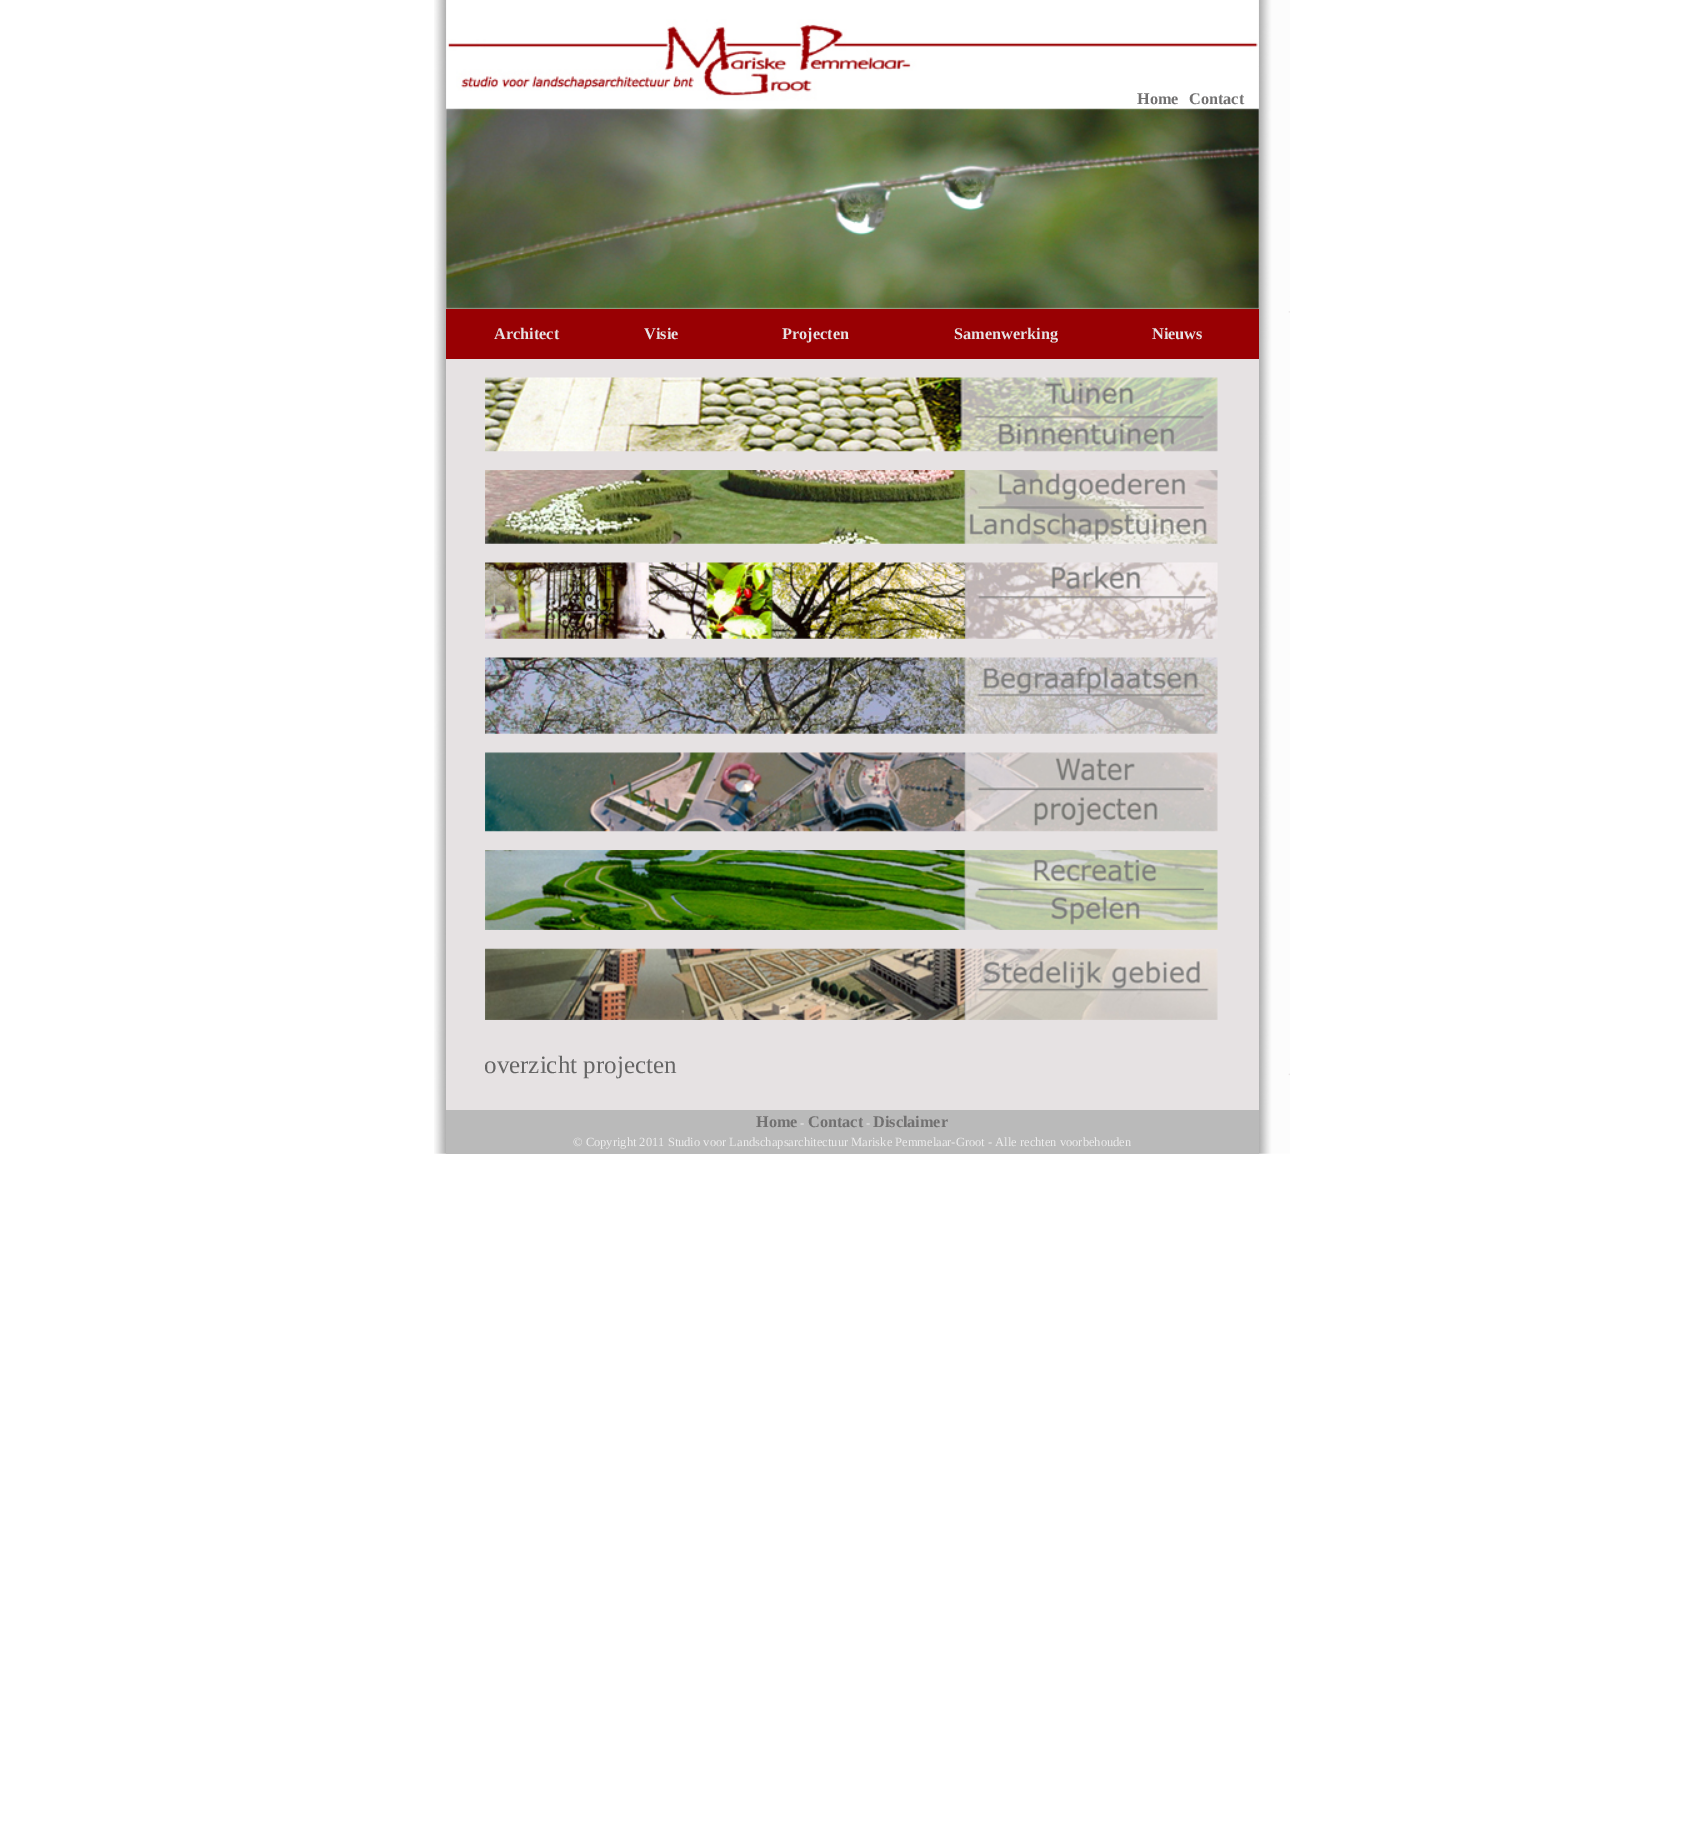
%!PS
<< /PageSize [1703 1832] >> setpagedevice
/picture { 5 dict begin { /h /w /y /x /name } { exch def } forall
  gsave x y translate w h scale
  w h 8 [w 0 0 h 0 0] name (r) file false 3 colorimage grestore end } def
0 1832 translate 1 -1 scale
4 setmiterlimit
1 setgray
0 0 1703 1832 rectfill
(img1.rgb) 434 0 13 1154 picture
(img2.rgb) 446 0 474 109 picture
(img4.rgb) 1258 0 32 1154 picture
(img3.rgb) 920 0 339 66 picture
/LiberationSerif-Bold [16.25 0 0 -16.25 0 0] selectfont
0.447 0.443 0.443 setrgbcolor
1137 104 moveto (Home) show
1189 104 moveto (Contact) show
(img5.rgb) 1258 66 1 43 picture
(img6.rgb) 446 108 813 201 picture
0.6 0 0.012 setrgbcolor
446 309 813 50 rectfill
0.902 0.886 0.89 setrgbcolor
494 339 moveto (Architect) show
644 339 moveto (Visie) show
782 339 moveto (Projecten) show
954 339 moveto (Samenwerking) show
1152 339 moveto (Nieuws) show
446 359 813 751 rectfill
(img7.rgb) 485 377 733 75 picture
(img8.rgb) 485 470 733 74 picture
(img9.rgb) 485 562 733 77 picture
(img10.rgb) 485 657 733 77 picture
(img11.rgb) 485 752 733 80 picture
(img12.rgb) 485 850 733 80 picture
(img13.rgb) 485 948 733 72 picture
/LiberationSerif-Regular [25 0 0 -25 0 0] selectfont
0.4 setgray
484 1073 moveto (overzicht projecten) show
0.729 setgray
446 1110 813 44 rectfill
/LiberationSerif-Bold [16.25 0 0 -16.25 0 0] selectfont
0.447 0.443 0.443 setrgbcolor
756 1127 moveto (Home) show
/LiberationSerif-Regular [12.5 0 0 -12.5 0 0] selectfont
0.933 setgray
800 1127 moveto (-) show
/LiberationSerif-Bold [16.25 0 0 -16.25 0 0] selectfont
0.447 0.443 0.443 setrgbcolor
808 1127 moveto (Contact) show
/LiberationSerif-Regular [12.5 0 0 -12.5 0 0] selectfont
0.933 setgray
866 1127 moveto (-) show
/LiberationSerif-Bold [16.25 0 0 -16.25 0 0] selectfont
0.447 0.443 0.443 setrgbcolor
873 1127 moveto (Disclaimer) show
/LiberationSerif-Regular [12.5 0 0 -12.5 0 0] selectfont
0.933 setgray
573 1146 moveto (© Copyright 2011 Studio voor Landschapsarchitectuur Mariske Pemmelaar-Groot - Alle rechten voorbehouden) show
showpage
